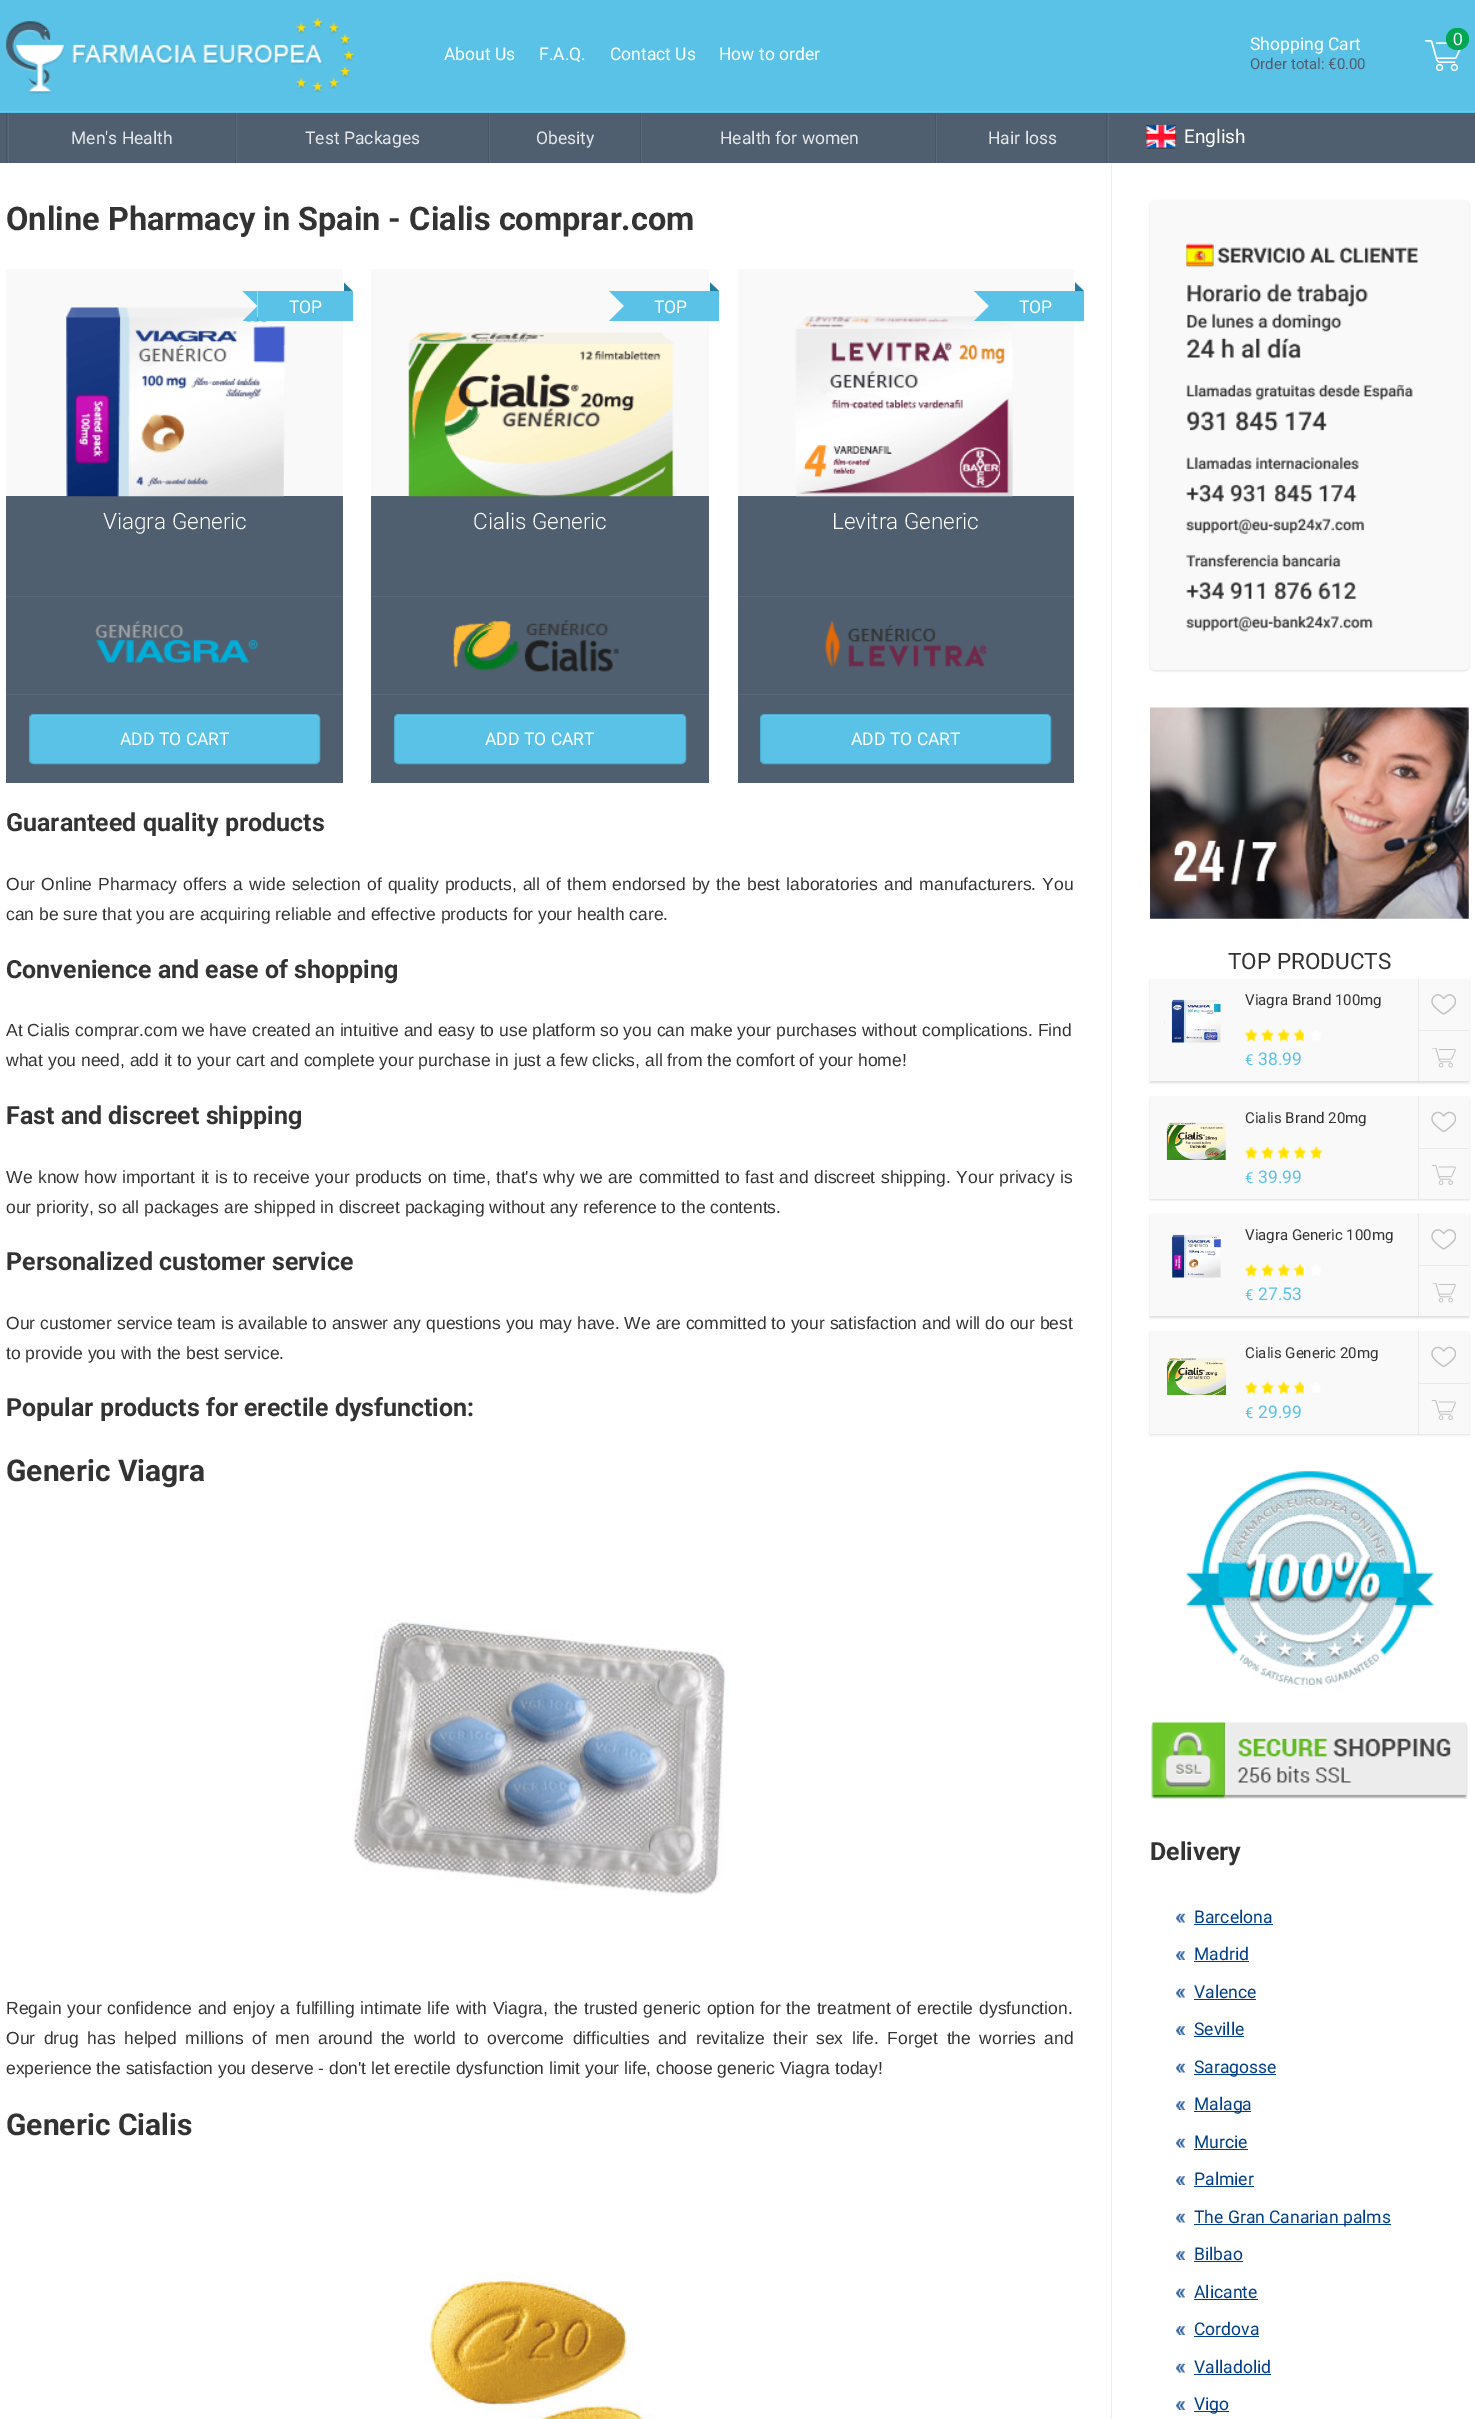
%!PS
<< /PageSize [1475 2419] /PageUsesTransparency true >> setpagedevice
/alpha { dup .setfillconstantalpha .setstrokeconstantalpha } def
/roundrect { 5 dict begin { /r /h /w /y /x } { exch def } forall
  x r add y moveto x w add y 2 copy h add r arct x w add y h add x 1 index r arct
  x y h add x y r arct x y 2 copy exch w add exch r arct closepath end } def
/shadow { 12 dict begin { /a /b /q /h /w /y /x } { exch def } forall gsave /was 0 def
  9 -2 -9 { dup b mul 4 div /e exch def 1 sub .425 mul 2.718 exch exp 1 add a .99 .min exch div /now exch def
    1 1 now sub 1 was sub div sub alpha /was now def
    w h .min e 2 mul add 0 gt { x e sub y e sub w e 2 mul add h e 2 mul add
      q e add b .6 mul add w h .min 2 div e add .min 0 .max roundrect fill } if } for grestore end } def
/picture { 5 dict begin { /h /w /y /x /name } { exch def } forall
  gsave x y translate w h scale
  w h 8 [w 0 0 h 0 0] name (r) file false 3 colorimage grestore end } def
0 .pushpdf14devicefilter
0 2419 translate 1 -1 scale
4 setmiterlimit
1 setgray
0 0 1475 2419 rectfill
0.353 0.761 0.906 setrgbcolor
0 0 1475 113 rectfill
0.424 0.796 0.929 setrgbcolor
0 111 1475 1 rectfill
(img1.rgb) 6 17 348 77 picture
/Roboto-Regular [17.5 0 0 -17.5 0 0] selectfont
1 setgray
444 60 moveto (About Us) show
539 60 moveto (F.A.Q.) show
610 60 moveto (Contact Us) show
719 60 moveto (How to order) show
1250 50 moveto (Shopping Cart) show
/Roboto-Regular [15 0 0 -15 0 0] selectfont
0.31 0.373 0.435 setrgbcolor
1250 69 moveto (Order total: €0.00) show
(img2.rgb) 1425 40 36 31 picture
0 0.651 0.318 setrgbcolor
1446 28 23 22 11 roundrect fill
/LiberationSans-Regular [17.5 0 0 -17.5 0 0] selectfont
1 setgray
1453 45 moveto (0) show
0.31 0.373 0.435 setrgbcolor
0 113 1475 50 rectfill
0.357 0.412 0.482 setrgbcolor
1108 113 1 50 rectfill
0.282 0.333 0.396 setrgbcolor
6 113 1 50 rectfill
235 113 1 50 rectfill
0.357 0.412 0.482 setrgbcolor
8 113 1 50 rectfill
/Roboto-Regular [17.5 0 0 -17.5 0 0] selectfont
0.898 0.906 0.914 setrgbcolor
71 144 moveto (Men's Health) show
0.282 0.333 0.396 setrgbcolor
488 113 1 50 rectfill
0.357 0.412 0.482 setrgbcolor
236 113 1 50 rectfill
0.898 0.906 0.914 setrgbcolor
305 144 moveto (Test Packages) show
0.282 0.333 0.396 setrgbcolor
640 113 1 50 rectfill
0.357 0.412 0.482 setrgbcolor
489 113 1 50 rectfill
0.898 0.906 0.914 setrgbcolor
536 144 moveto (Obesity) show
0.282 0.333 0.396 setrgbcolor
935 113 1 50 rectfill
0.357 0.412 0.482 setrgbcolor
641 113 1 50 rectfill
0.898 0.906 0.914 setrgbcolor
720 144 moveto (Health for women) show
0.282 0.333 0.396 setrgbcolor
1106 113 1 50 rectfill
0.357 0.412 0.482 setrgbcolor
936 113 1 50 rectfill
0.898 0.906 0.914 setrgbcolor
988 144 moveto (Hair loss) show
(img3.rgb) 1146 124 31 25 picture
/Roboto-Regular [19 0 0 -19 0 0] selectfont
1 setgray
1184 143 moveto (English) show
0.929 setgray
1111 163 1 2256 rectfill
/Roboto-Bold [32.5 0 0 -32.5 0 0] selectfont
0.2 setgray
6 230 moveto (Online Pharmacy in Spain - Cialis comprar.com) show
0.976 setgray
6 269 337 227 rectfill
0.31 0.373 0.435 setrgbcolor
6 496 337 287 rectfill
(img4.rgb) 66 307 220 190 picture
0.353 0.761 0.906 setrgbcolor
258 291 95 30 rectfill
0.133 0.494 0.62 setrgbcolor
newpath 352.5 291 moveto 344 291 lineto 344 282.5 lineto closepath fill
0.353 0.761 0.906 setrgbcolor
newpath 242.5 291 moveto 257.5 291 lineto 257.5 306 lineto closepath 257.5 321 moveto 242.5 321 lineto 257.5 306 lineto closepath fill
/Roboto-Regular [17.5 0 0 -17.5 0 0] selectfont
1 setgray
289 313 moveto (TOP) show
0.357 0.412 0.482 setrgbcolor
6 596 337 1 rectfill
/Roboto-Light [22.5 0 0 -22.5 0 0] selectfont
1 setgray
103 529 moveto (Viagra Generic) show
0.357 0.412 0.482 setrgbcolor
6 694 337 1 rectfill
(img5.rgb) 95 621 163 42 picture
0.353 0.761 0.906 setrgbcolor
29 714 291 50 5 roundrect fill
0.482 0.808 0.925 setrgbcolor
newpath 34 716 moveto 315 716 lineto 317 716 319 718 319 720 curveto 319 717 318 715 315 715 curveto 34 715 lineto 31 715 30 717 30 720 curveto 30 718 32 716 34 716 curveto closepath fill
0.286 0.682 0.824 setrgbcolor
29.5 714.5 290 49 4.5 roundrect stroke
/Roboto-Regular [17.5 0 0 -17.5 0 0] selectfont
1 setgray
120 745 moveto (ADD TO CART) show
0.976 setgray
371 269 338 227 rectfill
0.353 0.761 0.906 setrgbcolor
624 291 95 30 rectfill
0.133 0.494 0.62 setrgbcolor
newpath 719 291 moveto 710 291 lineto 710 282.5 lineto closepath fill
0.353 0.761 0.906 setrgbcolor
newpath 609 291 moveto 624 291 lineto 624 306 lineto closepath 624 321 moveto 609 321 lineto 624 306 lineto closepath fill
1 setgray
654 313 moveto (TOP) show
0.31 0.373 0.435 setrgbcolor
371 496 338 287 rectfill
(img6.rgb) 407 332 270 165 picture
0.357 0.412 0.482 setrgbcolor
371 596 338 1 rectfill
/Roboto-Light [22.5 0 0 -22.5 0 0] selectfont
1 setgray
473 529 moveto (Cialis Generic) show
0.357 0.412 0.482 setrgbcolor
371 694 338 1 rectfill
(img7.rgb) 452 620 167 52 picture
0.353 0.761 0.906 setrgbcolor
394 714 292 50 5 roundrect fill
0.482 0.808 0.925 setrgbcolor
newpath 399 716 moveto 681 716 lineto 683 716 685 718 685 720 curveto 685 717 684 715 681 715 curveto 399 715 lineto 396 715 395 717 395 720 curveto 395 718 397 716 399 716 curveto closepath fill
0.286 0.682 0.824 setrgbcolor
394.5 714.5 291 49 4.5 roundrect stroke
/Roboto-Regular [17.5 0 0 -17.5 0 0] selectfont
1 setgray
485 745 moveto (ADD TO CART) show
0.976 setgray
738 269 336 227 rectfill
0.31 0.373 0.435 setrgbcolor
738 496 336 287 rectfill
(img8.rgb) 795 316 218 181 picture
0.353 0.761 0.906 setrgbcolor
989 291 95 30 rectfill
0.133 0.494 0.62 setrgbcolor
newpath 1084 291 moveto 1075 291 lineto 1075 282.5 lineto closepath fill
0.353 0.761 0.906 setrgbcolor
newpath 974 291 moveto 989 291 lineto 989 306 lineto closepath 989 321 moveto 974 321 lineto 989 306 lineto closepath fill
1 setgray
1019 313 moveto (TOP) show
0.357 0.412 0.482 setrgbcolor
738 596 336 1 rectfill
/Roboto-Light [22.5 0 0 -22.5 0 0] selectfont
1 setgray
832 529 moveto (Levitra Generic) show
0.357 0.412 0.482 setrgbcolor
738 694 336 1 rectfill
(img9.rgb) 825 620 162 48 picture
0.353 0.761 0.906 setrgbcolor
760 714 291 50 5 roundrect fill
0.482 0.808 0.925 setrgbcolor
newpath 765 716 moveto 1046 716 lineto 1048 716 1050 718 1050 720 curveto 1050 717 1049 715 1046 715 curveto 765 715 lineto 762 715 761 717 761 720 curveto 761 718 763 716 765 716 curveto closepath fill
0.286 0.682 0.824 setrgbcolor
760.5 714.5 290 49 4.5 roundrect stroke
/Roboto-Regular [17.5 0 0 -17.5 0 0] selectfont
1 setgray
851 745 moveto (ADD TO CART) show
/Roboto-Bold [25 0 0 -25 0 0] selectfont
0.2 setgray
6 831 moveto (Guaranteed quality products) show
/LiberationSans-Regular [17.5 0 0 -17.5 0 0] selectfont
6 890 moveto 1.4 0 32 (Our Online Pharmacy offers a wide selection of quality products, all of them endorsed by the best laboratories and manufacturers. You) widthshow
6 920 moveto (can be sure that you are acquiring reliable and effective products for your health care.) show
/Roboto-Bold [25 0 0 -25 0 0] selectfont
6 978 moveto (Convenience and ease of shopping) show
/LiberationSans-Regular [17.5 0 0 -17.5 0 0] selectfont
6 1036 moveto (At Cialis comprar.com we have created an intuitive and easy to use platform so you can make your purchases without complications. Find) show
6 1066 moveto (what you need, add it to your cart and complete your purchase in just a few clicks, all from the comfort of your home!) show
/Roboto-Bold [25 0 0 -25 0 0] selectfont
6 1124 moveto (Fast and discreet shipping) show
/LiberationSans-Regular [17.5 0 0 -17.5 0 0] selectfont
6 1183 moveto 0.75 0 32 (We know how important it is to receive your products on time, that's why we are committed to fast and discreet shipping. Your privacy is) widthshow
6 1213 moveto (our priority, so all packages are shipped in discreet packaging without any reference to the contents.) show
/Roboto-Bold [25 0 0 -25 0 0] selectfont
6 1270 moveto (Personalized customer service) show
/LiberationSans-Regular [17.5 0 0 -17.5 0 0] selectfont
6 1329 moveto (Our customer service team is available to answer any questions you may have. We are committed to your satisfaction and will do our best) show
6 1359 moveto (to provide you with the best service.) show
/Roboto-Bold [25 0 0 -25 0 0] selectfont
6 1416 moveto (Popular products for erectile dysfunction:) show
/Roboto-Bold [30 0 0 -30 0 0] selectfont
6 1481 moveto (Generic Viagra) show
(img10.rgb) 353 1620 374 275 picture
/LiberationSans-Regular [17.5 0 0 -17.5 0 0] selectfont
6 2014 moveto 1 0 32 (Regain your confidence and enjoy a fulfilling intimate life with Viagra, the trusted generic option for the treatment of erectile dysfunction.) widthshow
6 2044 moveto 3.7 0 32 (Our drug has helped millions of men around the world to overcome difficulties and revitalize their sex life. Forget the worries and) widthshow
6 2074 moveto (experience the satisfaction you deserve - don't let erectile dysfunction limit your life, choose generic Viagra today!) show
/Roboto-Bold [30 0 0 -30 0 0] selectfont
6 2135 moveto (Generic Cialis) show
(img11.rgb) 424 2274 230 145 picture
0 setgray
1150 201 319 470 5 1 0.12 shadow
0.976 setgray
1150 200 319 470 5 roundrect fill
(img12.rgb) 1186 243 232 389 picture
(img13.rgb) 1150 707 319 212 picture
/Roboto-Regular [22.5 0 0 -22.5 0 0] selectfont
0.2 setgray
1228 969 moveto (TOP PRODUCTS) show
0 setgray
1150 980 319 103 0 1 0.12 shadow
0.976 setgray
1150 979 319 102 rectfill
(img14.rgb) 1164 999 57 44 picture
/Roboto-Regular [15 0 0 -15 0 0] selectfont
0.2 setgray
1245 1005 moveto (Viagra Brand 100mg) show
(img15.rgb) 1246 1030 75 11 picture
(img16.rgb) 1245 1029 59 13 picture
0.353 0.761 0.906 setrgbcolor
1245 1065 moveto (€) show
/Roboto-Regular [17.5 0 0 -17.5 0 0] selectfont
1258 1065 moveto (38.99) show
0.91 setgray
1418 979 1 102 rectfill
1419 1030 50 1 rectfill
(img17.rgb) 1431 994 25 21 picture
(img18.rgb) 1431 1048 25 20 picture
0 setgray
1150 1098 319 102 0 1 0.12 shadow
0.976 setgray
1150 1096 319 103 rectfill
(img19.rgb) 1166 1122 61 38 picture
/Roboto-Regular [15 0 0 -15 0 0] selectfont
0.2 setgray
1245 1123 moveto (Cialis Brand 20mg) show
(img20.rgb) 1246 1148 75 10 picture
(img21.rgb) 1245 1146 78 13 picture
0.353 0.761 0.906 setrgbcolor
1245 1183 moveto (€) show
/Roboto-Regular [17.5 0 0 -17.5 0 0] selectfont
1258 1183 moveto (39.99) show
0.91 setgray
1418 1096 1 103 rectfill
1419 1148 50 1 rectfill
(img22.rgb) 1431 1111 25 21 picture
(img23.rgb) 1431 1165 25 20 picture
0 setgray
1150 1215 319 103 0 1 0.12 shadow
0.976 setgray
1150 1214 319 102 rectfill
(img24.rgb) 1172 1234 49 44 picture
/Roboto-Regular [15 0 0 -15 0 0] selectfont
0.2 setgray
1245 1240 moveto (Viagra Generic 100mg) show
(img25.rgb) 1246 1265 75 11 picture
(img26.rgb) 1245 1264 59 13 picture
0.353 0.761 0.906 setrgbcolor
1245 1300 moveto (€) show
/Roboto-Regular [17.5 0 0 -17.5 0 0] selectfont
1258 1300 moveto (27.53) show
0.91 setgray
1418 1214 1 102 rectfill
1419 1265 50 1 rectfill
(img17.rgb) 1431 1229 25 21 picture
(img18.rgb) 1431 1283 25 20 picture
0 setgray
1150 1333 319 102 0 1 0.12 shadow
0.976 setgray
1150 1331 319 103 rectfill
(img27.rgb) 1167 1358 60 37 picture
/Roboto-Regular [15 0 0 -15 0 0] selectfont
0.2 setgray
1245 1358 moveto (Cialis Generic 20mg) show
(img28.rgb) 1246 1383 75 10 picture
(img29.rgb) 1245 1381 59 13 picture
0.353 0.761 0.906 setrgbcolor
1245 1418 moveto (€) show
/Roboto-Regular [17.5 0 0 -17.5 0 0] selectfont
1258 1418 moveto (29.99) show
0.91 setgray
1418 1331 1 103 rectfill
1419 1383 50 1 rectfill
(img22.rgb) 1431 1346 25 21 picture
(img23.rgb) 1431 1400 25 20 picture
(img30.rgb) 1186 1471 248 214 picture
(img31.rgb) 1151 1722 317 77 picture
/Roboto-Bold [25 0 0 -25 0 0] selectfont
0.2 setgray
1150 1860 moveto (Delivery) show
(img32.rgb) 1176 1913 9 10 picture
/Roboto-Regular [17.5 0 0 -17.5 0 0] selectfont
0 0.247 0.525 setrgbcolor
1194 1923 moveto (Barcelona) show
1194 1924 79 1 rectfill
(img33.rgb) 1176 1951 9 9 picture
1194 1960 moveto (Madrid) show
1194 1961 55 1 rectfill
(img32.rgb) 1176 1988 9 10 picture
1194 1998 moveto (Valence) show
1194 1999 62 1 rectfill
(img33.rgb) 1176 2026 9 9 picture
1194 2035 moveto (Seville) show
1194 2036 50 1 rectfill
(img32.rgb) 1176 2063 9 10 picture
1194 2074 82 1 rectfill
1194 2073 moveto (Saragosse) show
(img33.rgb) 1176 2101 9 9 picture
1194 2111 57 1 rectfill
1194 2110 moveto (Malaga) show
(img32.rgb) 1176 2138 9 10 picture
1194 2148 moveto (Murcie) show
1194 2149 54 1 rectfill
(img33.rgb) 1176 2176 9 9 picture
1194 2185 moveto (Palmier) show
1194 2186 60 1 rectfill
(img32.rgb) 1176 2213 9 10 picture
1194 2224 197 1 rectfill
1194 2223 moveto (The Gran Canarian palms) show
(img33.rgb) 1176 2251 9 9 picture
1194 2260 moveto (Bilbao) show
1194 2261 49 1 rectfill
(img32.rgb) 1176 2288 9 10 picture
1194 2298 moveto (Alicante) show
1194 2299 64 1 rectfill
(img33.rgb) 1176 2326 9 9 picture
1194 2335 moveto (Cordova) show
1194 2336 65 1 rectfill
(img32.rgb) 1176 2363 9 10 picture
1194 2373 moveto (Valladolid) show
1194 2374 77 1 rectfill
(img33.rgb) 1176 2401 9 9 picture
1194 2411 35 1 rectfill
1194 2410 moveto (Vigo) show
.poppdf14devicefilter showpage
